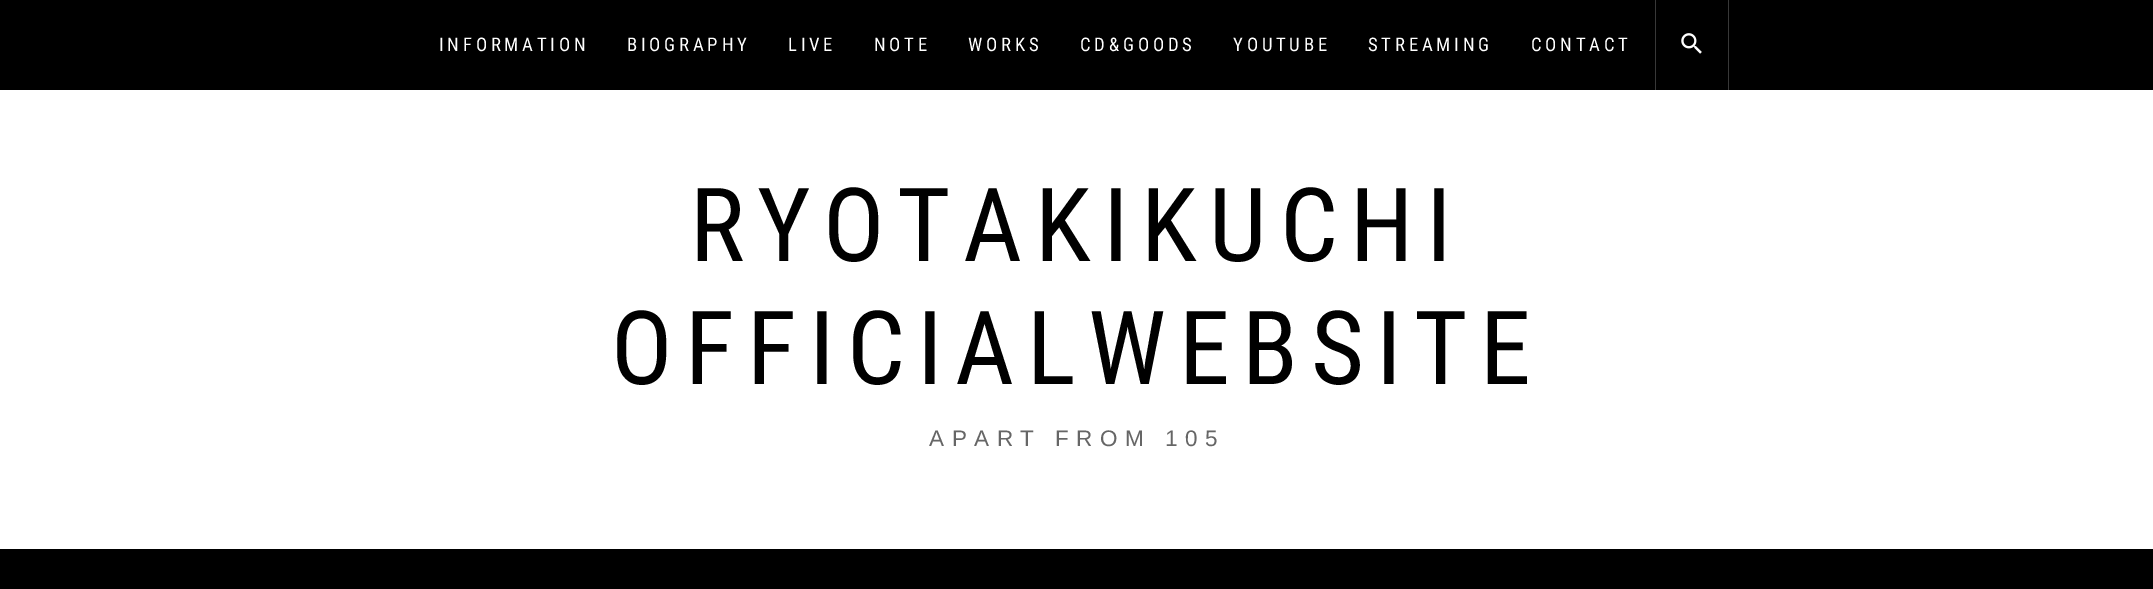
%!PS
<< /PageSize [2153 589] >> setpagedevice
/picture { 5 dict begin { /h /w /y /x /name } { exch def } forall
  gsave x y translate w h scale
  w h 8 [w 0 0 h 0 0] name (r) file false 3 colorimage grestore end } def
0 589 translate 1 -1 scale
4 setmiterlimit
1 setgray
0 0 2153 589 rectfill
0 setgray
0 0 2153 90 rectfill
/RobotoCondensed-Regular [18.75 0 0 -18.75 0 0] selectfont
1 setgray
439 51 moveto 3.75 0 (INFORMATION) ashow
627 51 moveto 3.75 0 (BIOGRAPHY) ashow
788 51 moveto 3.75 0 (LIVE) ashow
874 51 moveto 3.75 0 (NOTE) ashow
968 51 moveto 3.75 0 (WORKS) ashow
1080 51 moveto 3.75 0 (CD&GOODS) ashow
1233 51 moveto 3.75 0 (YOUTUBE) ashow
1368 51 moveto 3.75 0 (STREAMING) ashow
1531 51 moveto 3.75 0 (CONTACT) ashow
0.22 setgray
1728 0 1 90 rectfill
1655 0 1 90 rectfill
(img1.rgb) 1681 33 21 21 picture
/RobotoCondensed-Regular [102.5 0 0 -102.5 0 0] selectfont
0 setgray
690 261 moveto 12.5 0 (RYOTAKIKUCHI) ashow
611 384 moveto 12.5 0 (OFFICIALWEBSITE) ashow
/LiberationSans-Regular [22.5 0 0 -22.5 0 0] selectfont
0.4 setgray
929 446 moveto 7.5 0 (APART FROM 105) ashow
0 setgray
0 549 2153 40 rectfill
showpage
